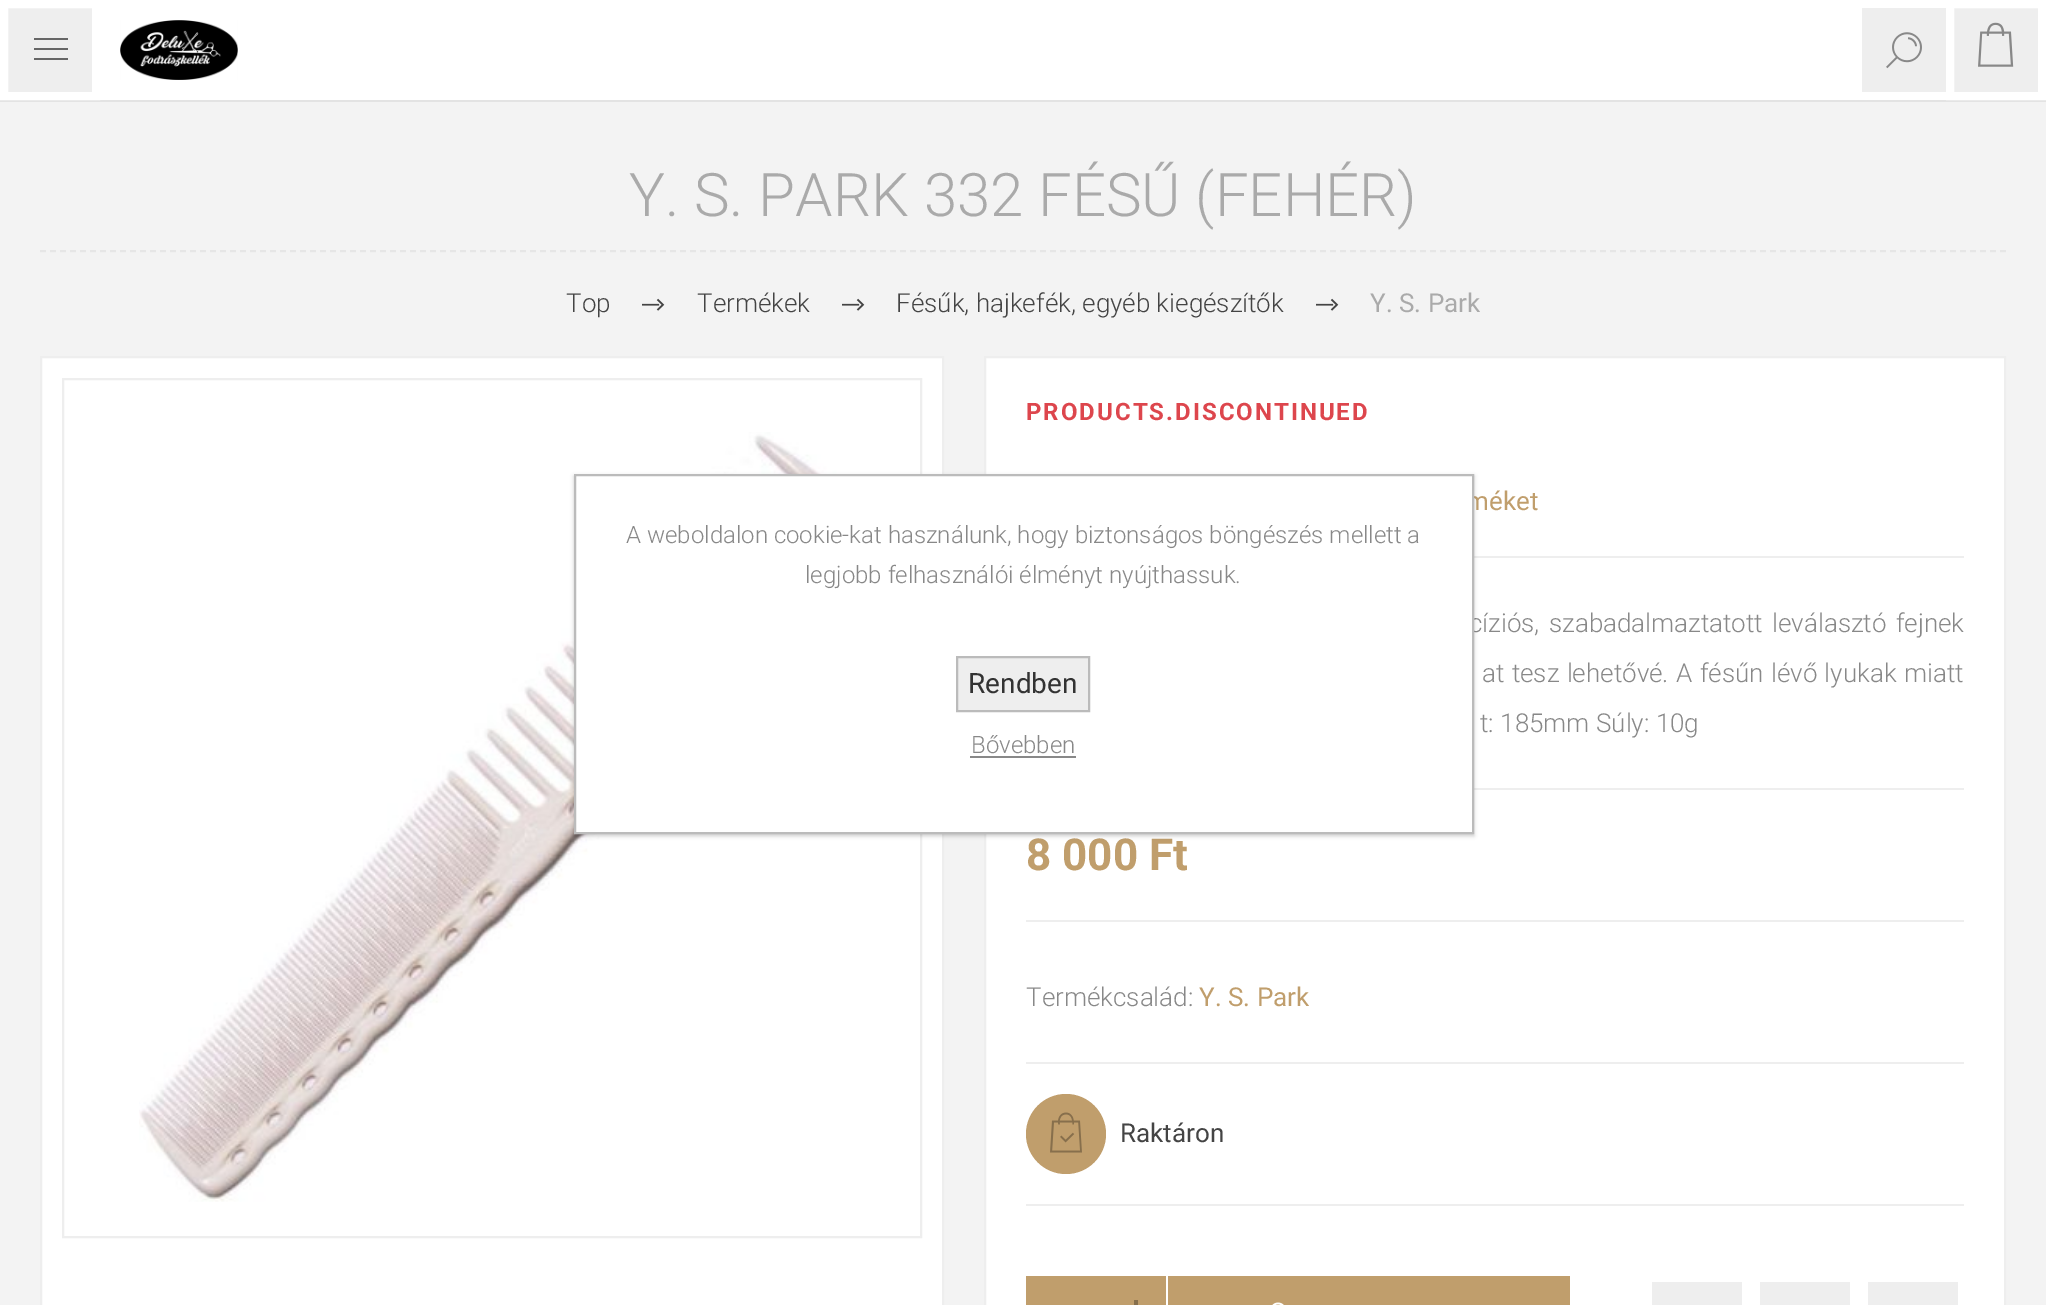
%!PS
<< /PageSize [2046 1305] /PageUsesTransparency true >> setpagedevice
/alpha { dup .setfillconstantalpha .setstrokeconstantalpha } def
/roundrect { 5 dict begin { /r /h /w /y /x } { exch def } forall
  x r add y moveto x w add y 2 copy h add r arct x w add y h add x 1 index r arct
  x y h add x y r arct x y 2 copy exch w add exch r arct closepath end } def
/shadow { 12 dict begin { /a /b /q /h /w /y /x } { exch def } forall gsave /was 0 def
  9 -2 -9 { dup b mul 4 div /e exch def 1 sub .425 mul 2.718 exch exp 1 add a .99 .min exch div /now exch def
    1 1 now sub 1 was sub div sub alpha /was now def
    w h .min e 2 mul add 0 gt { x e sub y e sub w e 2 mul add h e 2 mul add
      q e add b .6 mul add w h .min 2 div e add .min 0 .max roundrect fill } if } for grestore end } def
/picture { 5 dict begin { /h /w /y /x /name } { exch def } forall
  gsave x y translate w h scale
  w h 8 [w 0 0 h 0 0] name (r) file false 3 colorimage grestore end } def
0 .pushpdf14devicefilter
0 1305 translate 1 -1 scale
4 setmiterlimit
0.953 setgray
0 0 2046 1305 rectfill
0.89 setgray
0 100 2046 2 rectfill
1 setgray
100 0 1846 100 rectfill
(img1.rgb) 120 20 118 60 picture
0.933 setgray
1862 8 84 84 rectfill
(img2.rgb) 1886 32 36 37 picture
newpath 4 4 moveto 96 4 lineto 96 96 lineto 4 96 lineto closepath gsave fill grestore
1 setgray
8 setlinewidth
stroke
0.4 setgray
34 38 34 2 rectfill
34 48 34 2 rectfill
34 58 34 2 rectfill
0.933 setgray
newpath 1950 4 moveto 2042 4 lineto 2042 96 lineto 1950 96 lineto closepath gsave fill grestore
1 setgray
stroke
(img3.rgb) 1978 22 36 45 picture
0.902 setgray
2 setlinewidth
[6 4] 0 setdash
newpath 40 251 moveto 2006 251 lineto stroke
/Roboto-Light [60 0 0 -60 0 0] selectfont
0.667 setgray
629 216 moveto (Y. S. PARK 332 FÉSŰ \(FEHÉR\)) show
/Roboto-Light [26 0 0 -26 0 0] selectfont
0.267 setgray
566 312 moveto (Top) show
(img4.rgb) 642 298 23 13 picture
697 312 moveto (Termékek) show
(img4.rgb) 842 298 23 13 picture
896 312 moveto (Fésűk, hajkefék, egyéb kiegészítők) show
(img4.rgb) 1316 298 23 13 picture
/Roboto-Regular [26 0 0 -26 0 0] selectfont
0.667 setgray
1370 312 moveto (Y. S. Park) show
1 setgray
newpath 41 357 moveto 943 357 lineto 943 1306 lineto 41 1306 lineto closepath gsave fill grestore
0.933 setgray
[] 0 setdash
stroke
63 379 858 858 rectstroke
(img5.rgb) 139 432 733 770 picture
1 setgray
newpath 985 357 moveto 2005 357 lineto 2005 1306 lineto 985 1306 lineto closepath gsave fill grestore
0.933 setgray
stroke
/Roboto-Bold [24 0 0 -24 0 0] selectfont
0.867 0.275 0.302 setrgbcolor
1026 420 moveto 2 0 (PRODUCTS.DISCONTINUED) ashow
0.933 setgray
1474 556 490 2 rectfill
/Roboto-Regular [26 0 0 -26 0 0] selectfont
0.753 0.62 0.424 setrgbcolor
1466 510 moveto (méket) show
0.933 setgray
1474 788 490 2 rectfill
/Roboto-Light [26 0 0 -26 0 0] selectfont
0.533 setgray
1469 632 moveto 3 0 32 (cíziós, szabadalmaztatott leválasztó fejnek) widthshow
1482 682 moveto 1 0 32 (at tesz lehetővé. A fésűn lévő lyukak miatt) widthshow
1480 732 moveto (t: 185mm Súly: 10g) show
0.933 setgray
1026 920 938 2 rectfill
/Roboto-Bold [44 0 0 -44 0 0] selectfont
0.753 0.62 0.424 setrgbcolor
1026 870 moveto (8 000 Ft) show
0.933 setgray
1026 1062 938 2 rectfill
/Roboto-Light [26 0 0 -26 0 0] selectfont
0.533 setgray
1026 1006 moveto (Termékcsalád:) show
/Roboto-Regular [26 0 0 -26 0 0] selectfont
0.753 0.62 0.424 setrgbcolor
1199 1006 moveto (Y. S. Park) show
0.933 setgray
1026 1204 938 2 rectfill
0.753 0.62 0.424 setrgbcolor
newpath 1066 1134 40 0 360 arc closepath fill
(img6.rgb) 1050 1112 32 41 picture
0.267 setgray
1120 1142 moveto (Raktáron) show
0.753 0.62 0.424 setrgbcolor
1026 1276 140 29 rectfill
0.525 0.435 0.298 setrgbcolor
1134 1300 4 5 rectfill
0.753 0.62 0.424 setrgbcolor
1168 1276 402 29 rectfill
(img7.rgb) 1272 1302 12 3 picture
0.933 setgray
1652 1282 90 23 rectfill
1760 1282 90 23 rectfill
1868 1282 90 23 rectfill
0 setgray
574 476 900 360 0 2 0.2 shadow
1 setgray
newpath 575 475 moveto 1473 475 lineto 1473 833 lineto 575 833 lineto closepath gsave fill grestore
0.733 setgray
stroke
/Roboto-Light [24 0 0 -24 0 0] selectfont
0.533 setgray
626 543 moveto (A weboldalon cookie-kat használunk, hogy biztonságos böngészés mellett a) show
805 583 moveto (legjobb felhasználói élményt nyújthassuk.) show
0.933 setgray
newpath 957 657 moveto 1089 657 lineto 1089 711 lineto 957 711 lineto closepath gsave fill grestore
0.733 setgray
stroke
/Roboto-Regular [28 0 0 -28 0 0] selectfont
0.2 setgray
968 693 moveto (Rendben) show
/Roboto-Light [24 0 0 -24 0 0] selectfont
0.533 setgray
971 753 moveto (Bővebben) show
970 756 106 2 rectfill
.poppdf14devicefilter showpage
